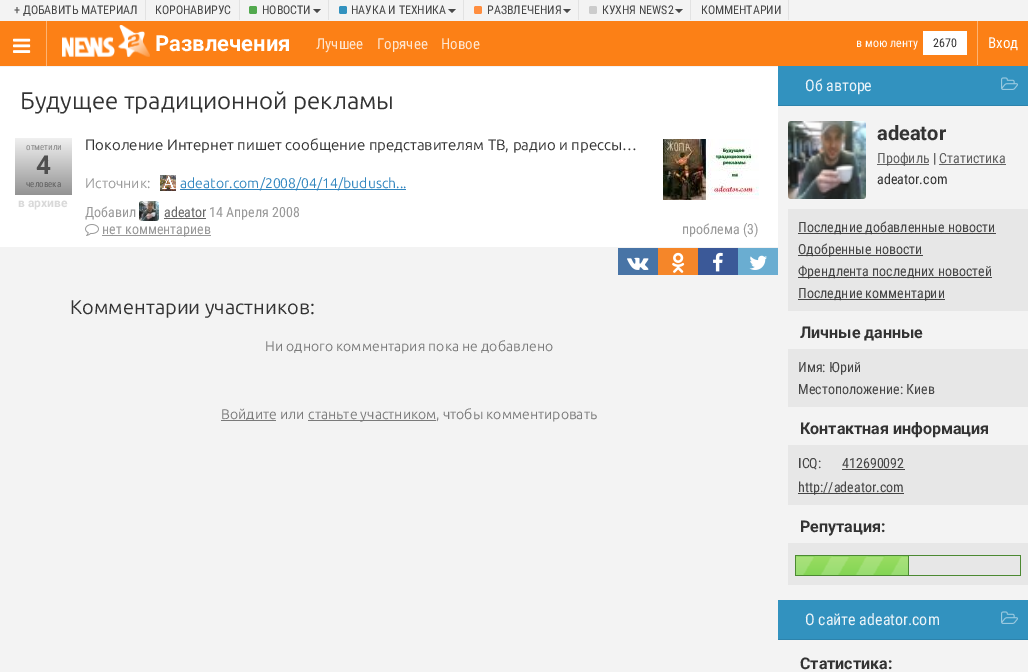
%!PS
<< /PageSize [1028 672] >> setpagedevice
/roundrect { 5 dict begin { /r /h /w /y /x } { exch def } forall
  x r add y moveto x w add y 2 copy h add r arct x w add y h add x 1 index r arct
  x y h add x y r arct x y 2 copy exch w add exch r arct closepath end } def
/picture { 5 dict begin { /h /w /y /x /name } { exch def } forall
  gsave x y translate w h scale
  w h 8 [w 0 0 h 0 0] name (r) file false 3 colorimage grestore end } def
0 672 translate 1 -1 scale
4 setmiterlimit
0.953 setgray
0 0 1028 672 rectfill
0.886 setgray
145 0 1 20 rectfill
/RobotoCondensed-Regular [12 0 0 -12 0 0] selectfont
0.271 setgray
14 14 moveto (+ ДОБАВИТЬ МАТЕРИАЛ) show
0.886 setgray
239 0 1 20 rectfill
0.271 setgray
155 14 moveto (КОРОНАВИРУС) show
0.886 setgray
328 0 1 20 rectfill
0.322 0.663 0.306 setrgbcolor
249 6 8 8 2 roundrect fill
0.271 setgray
262 14 moveto (НОВОСТИ) show
0.286 setgray
newpath 313 9 moveto 321 9 lineto 317 13 lineto closepath fill
0.886 setgray
463 0 1 20 rectfill
0.196 0.573 0.749 setrgbcolor
339 6 8 8 2 roundrect fill
0.271 setgray
351 14 moveto (НАУКА И ТЕХНИКА) show
0.286 setgray
newpath 448 9 moveto 456 9 lineto 452 13 lineto closepath fill
0.886 setgray
578 0 1 20 rectfill
1 0.557 0.247 setrgbcolor
474 6 8 8 2 roundrect fill
0.271 setgray
487 14 moveto (РАЗВЛЕЧЕНИЯ) show
0.286 setgray
newpath 563 9 moveto 571 9 lineto 567 13 lineto closepath fill
0.886 setgray
690 0 1 20 rectfill
0.8 setgray
589 6 8 8 2 roundrect fill
0.271 setgray
602 14 moveto (КУХНЯ NEWS2) show
0.286 setgray
newpath 675 9 moveto 683 9 lineto 679 13 lineto closepath fill
0.886 setgray
788 0 1 20 rectfill
0.271 setgray
701 14 moveto (КОММЕНТАРИИ) show
0.988 0.502 0.086 setrgbcolor
0 21 1028 45 rectfill
0.992 0.702 0.451 setrgbcolor
46 21 1 45 rectfill
(img1.rgb) 13 38 18 15 picture
(img2.rgb) 62 25 88 32 picture
/Roboto-Bold [22 0 0 -22 0 0] selectfont
1 setgray
155 51 moveto (Развлечения) show
/RobotoCondensed-Regular [12 0 0 -12 0 0] selectfont
856 47 moveto (в мою ленту) show
923 31 44 24 rectfill
0.2 setgray
933 47 moveto (2670) show
0.992 0.702 0.451 setrgbcolor
977 21 1 44 rectfill
/RobotoCondensed-Regular [15 0 0 -15 0 0] selectfont
1 setgray
988 48 moveto (Вход) show
0.996 0.902 0.816 setrgbcolor
316 49 moveto (Лучшее) show
377 49 moveto (Горячее) show
441 49 moveto (Новое) show
1 setgray
0 67 778 180 rectfill
/Ubuntu-Regular [24 0 0 -24 0 0] selectfont
0.2 setgray
20 109 moveto (Будущее традиционной рекламы) show
gsave 15 138 57 57 3 roundrect clip newpath
<< /ShadingType 2 /ColorSpace /DeviceRGB /Coords [44 138 44 195] /Extend [true true] /Function << /FunctionType 2 /Domain [0 1] /C0 [0.941 0.941 0.941] /C1 [0.576 0.576 0.576] /N 1 >> >> shfill grestore
/RobotoCondensed-Regular [9 0 0 -9 0 0] selectfont
0.529 setgray
26 150 moveto (отметили) show
/Roboto-Bold [26 0 0 -26 0 0] selectfont
0.31 setgray
36 174 moveto (4) show
/RobotoCondensed-Regular [9 0 0 -9 0 0] selectfont
0.376 setgray
26 187 moveto (человека) show
/Roboto-Bold [12 0 0 -12 0 0] selectfont
0.851 setgray
18 207 moveto (в архиве) show
/Ubuntu-Regular [15 0 0 -15 0 0] selectfont
0.2 setgray
85 150 moveto (Поколение Интернет пишет сообщение представителям ТВ, радио и прессы…) show
(img3.rgb) 663 139 96 61 picture
/Ubuntu-Regular [14 0 0 -14 0 0] selectfont
0.6 setgray
85 188 moveto (Источник:) show
(img4.rgb) 160 175 16 16 picture
0.196 0.525 0.749 setrgbcolor
180 189 226 1 rectfill
180 188 moveto (adeator.com/2008/04/14/budusch...) show
/RobotoCondensed-Regular [14 0 0 -14 0 0] selectfont
0.6 setgray
85 217 moveto (Добавил) show
(img5.rgb) 139 201 20 20 picture
0.4 setgray
164 217 moveto (adeator) show
164 218 42 1 rectfill
0.6 setgray
209 217 moveto (14 Апреля 2008) show
(img6.rgb) 85 224 14 12 picture
102 235 109 1 rectfill
102 234 moveto (нет комментариев) show
682 234 moveto (проблема \(3\)) show
0.282 0.455 0.651 setrgbcolor
618 248 40 27 rectfill
(img7.rgb) 627 257 22 13 picture
0.961 0.525 0.161 setrgbcolor
658 248 40 27 rectfill
(img8.rgb) 672 252 13 21 picture
0.231 0.349 0.596 setrgbcolor
698 248 40 27 rectfill
(img9.rgb) 713 252 10 20 picture
0.416 0.678 0.82 setrgbcolor
738 248 40 27 rectfill
(img10.rgb) 749 255 18 15 picture
/Ubuntu-Regular [20 0 0 -20 0 0] selectfont
0.2 setgray
70 314 moveto (Комментарии участников:) show
/Ubuntu-Regular [14 0 0 -14 0 0] selectfont
0.478 setgray
265 351 moveto (Ни одного комментария пока не добавлено) show
221 420 55 1 rectfill
221 419 moveto (Войдите) show
280 419 moveto (или) show
308 420 128 1 rectfill
308 419 moveto (станьте участником) show
436 419 moveto (, чтобы комментировать) show
0.196 0.573 0.749 setrgbcolor
778 66 250 39 rectfill
0.176 0.514 0.675 setrgbcolor
778 105 250 1 rectfill
/RobotoCondensed-Regular [16 0 0 -16 0 0] selectfont
0.922 0.957 0.976 setrgbcolor
805 91 moveto (Об авторе) show
(img11.rgb) 1001 77 17 13 picture
(img12.rgb) 788 121 78 78 picture
/Roboto-Bold [20 0 0 -20 0 0] selectfont
0.2 setgray
877 140 moveto (adeator) show
0.38 setgray
877 164 52 1 rectfill
/RobotoCondensed-Regular [14 0 0 -14 0 0] selectfont
0.376 setgray
877 163 moveto (Профиль) show
0.2 setgray
933 163 moveto (|) show
0.376 setgray
939 163 moveto (Статистика) show
0.38 setgray
939 164 67 1 rectfill
0.2 setgray
877 184 moveto (adeator.com) show
0.906 setgray
788 209 240 102 rectfill
0.271 setgray
798 233 198 1 rectfill
798 232 moveto (Последние добавленные новости) show
798 255 125 1 rectfill
798 254 moveto (Одобренные новости) show
798 277 194 1 rectfill
798 276 moveto (Френдлента последних новостей) show
798 299 147 1 rectfill
798 298 moveto (Последние комментарии) show
/Roboto-Bold [16 0 0 -16 0 0] selectfont
0.2 setgray
800 338 moveto (Личные данные) show
0.906 setgray
788 349 240 58 rectfill
/RobotoCondensed-Regular [14 0 0 -14 0 0] selectfont
0.271 setgray
798 372 moveto (Имя: Юрий) show
798 394 moveto (Местоположение: Киев) show
/Roboto-Bold [16 0 0 -16 0 0] selectfont
0.2 setgray
800 434 moveto (Контактная информация) show
0.906 setgray
788 445 240 60 rectfill
/RobotoCondensed-Regular [14 0 0 -14 0 0] selectfont
0.271 setgray
798 468 moveto (ICQ:) show
842 468 moveto (412690092) show
842 469 63 1 rectfill
798 493 106 1 rectfill
798 492 moveto (http://adeator.com) show
/Roboto-Bold [16 0 0 -16 0 0] selectfont
0.2 setgray
800 532 moveto (Репутация:) show
0.906 setgray
788 543 240 42 rectfill
0.298 0.537 0.196 setrgbcolor
795 555 226 1 rectfill
1020 555 1 21 rectfill
795 575 226 1 rectfill
795 555 1 21 rectfill
(img13.rgb) 796 556 112 19 picture
908 555 1 21 rectfill
0.196 0.573 0.749 setrgbcolor
778 600 250 39 rectfill
0.176 0.514 0.675 setrgbcolor
778 639 250 1 rectfill
/RobotoCondensed-Regular [16 0 0 -16 0 0] selectfont
0.922 0.957 0.976 setrgbcolor
805 625 moveto (О сайте adeator.com) show
(img11.rgb) 1001 611 17 13 picture
/Roboto-Bold [16 0 0 -16 0 0] selectfont
0.2 setgray
800 669 moveto (Статистика:) show
showpage
